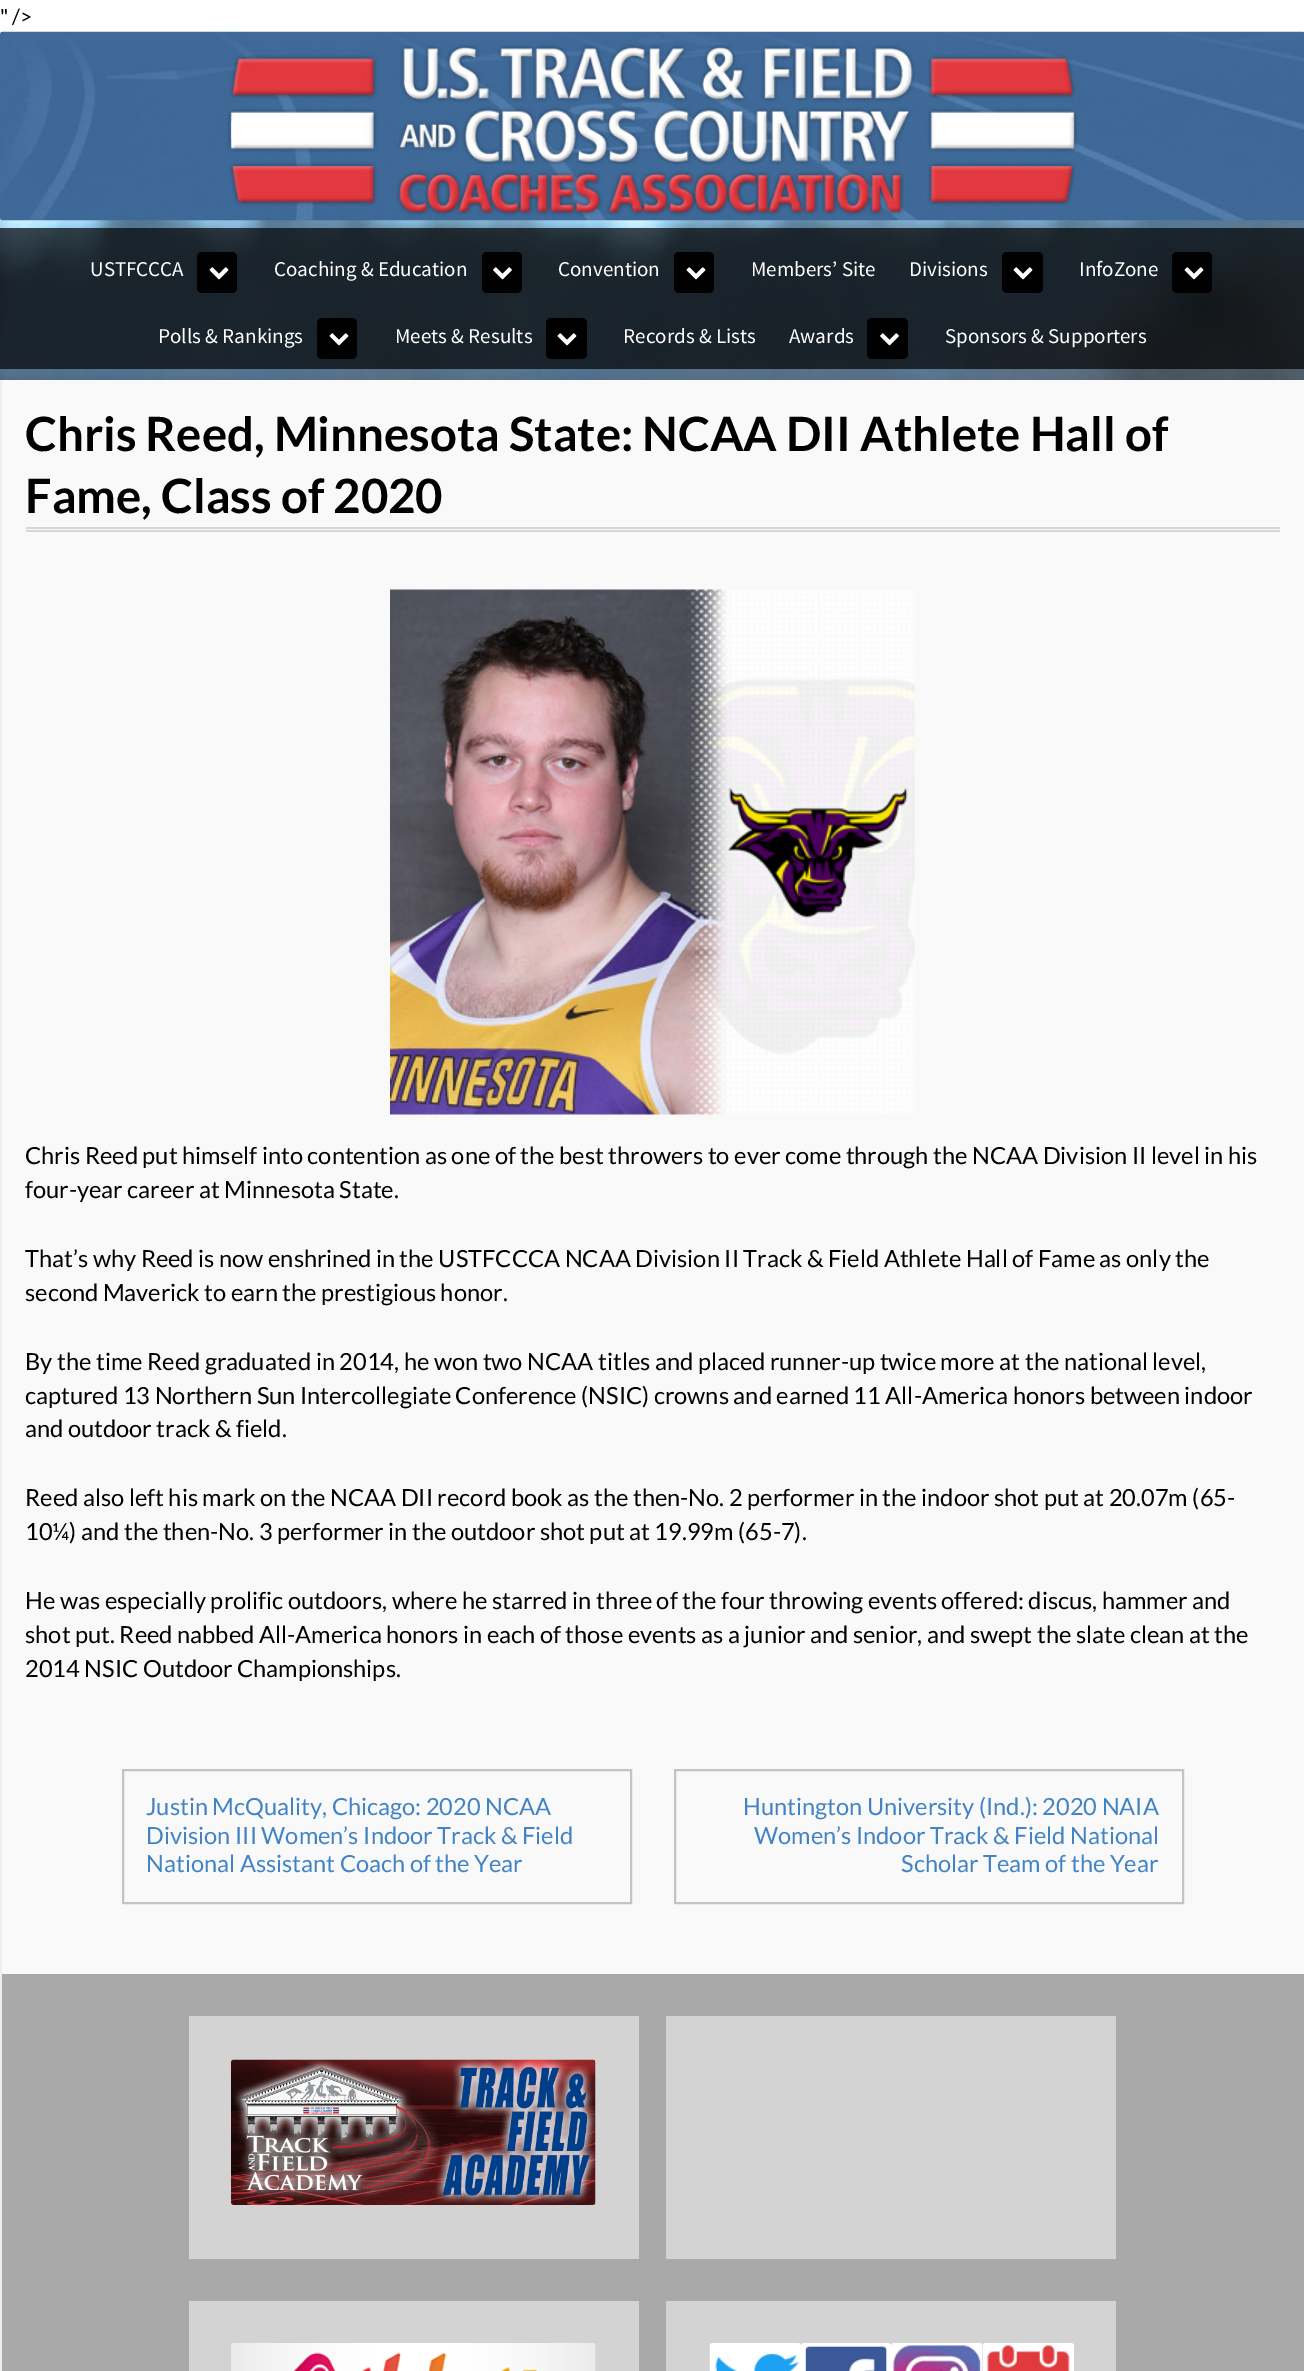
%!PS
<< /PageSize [1304 2371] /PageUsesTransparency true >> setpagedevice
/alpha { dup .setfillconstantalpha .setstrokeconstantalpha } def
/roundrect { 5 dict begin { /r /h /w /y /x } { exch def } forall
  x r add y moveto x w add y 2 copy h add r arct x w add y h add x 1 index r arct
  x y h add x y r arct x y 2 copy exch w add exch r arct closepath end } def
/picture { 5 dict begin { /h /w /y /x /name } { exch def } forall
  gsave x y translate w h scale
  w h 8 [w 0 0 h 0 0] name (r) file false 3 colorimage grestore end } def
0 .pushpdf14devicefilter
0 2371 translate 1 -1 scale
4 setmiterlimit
1 setgray
0 0 1304 2371 rectfill
(img1.rgb) 0 0 1304 380 picture
/Lato-Regular [21 0 0 -21 0 0] selectfont
0 setgray
0 24 moveto (" />) show
(img2.rgb) 0 31 1304 190 picture
0.7 alpha
0 228 1304 141 rectfill
/SourceSansPro-Regular [21 0 0 -21 0 0] selectfont
1 alpha
1 setgray
90 276 moveto (USTFCCCA) show
0 setgray
197 252 40 41 5 roundrect fill
(img3.rgb) 209 267 20 13 picture
1 setgray
274 276 moveto (Coaching & Education) show
0 setgray
482 252 40 41 5 roundrect fill
(img4.rgb) 493 267 19 13 picture
1 setgray
558 276 moveto (Convention) show
0 setgray
674 252 40 41 5 roundrect fill
(img3.rgb) 686 267 20 13 picture
1 setgray
751 276 moveto (Members’ Site) show
909 276 moveto (Divisions) show
0 setgray
1002 252 41 41 5 roundrect fill
(img3.rgb) 1013 267 20 13 picture
1 setgray
1079 276 moveto (InfoZone) show
0 setgray
1172 252 40 41 5 roundrect fill
(img3.rgb) 1184 267 20 13 picture
1 setgray
158 343 moveto (Polls & Rankings) show
0 setgray
317 318 40 41 5 roundrect fill
(img3.rgb) 329 333 20 13 picture
1 setgray
395 343 moveto (Meets & Results) show
0 setgray
546 318 41 41 5 roundrect fill
(img3.rgb) 557 333 20 13 picture
1 setgray
623 343 moveto (Records & Lists) show
789 343 moveto (Awards) show
0 setgray
867 318 41 41 5 roundrect fill
(img4.rgb) 880 333 19 13 picture
1 setgray
945 343 moveto (Sponsors & Supporters) show
0.976 setgray
2 380 1302 1594 rectfill
0.933 setgray
0 380 2 1991 rectfill
0.839 setgray
26 527 1254 2 rectfill
26 530 1254 2 rectfill
/Lato-Bold [47.25 0 0 -47.25 0 0] selectfont
0 setgray
25 451 moveto (Chris Reed, Minnesota State: NCAA DII Athlete Hall of) show
25 513 moveto (Fame, Class of 2020) show
(img5.rgb) 390 589 525 526 picture
/Lato-Regular [23.62 0 0 -23.62 0 0] selectfont
25 1164 moveto (Chris Reed put himself into contention as one of the best throwers to ever come through the NCAA Division II level in his) show
25 1198 moveto (four-year career at Minnesota State.) show
25 1267 moveto (That’s why Reed is now enshrined in the USTFCCCA NCAA Division II Track & Field Athlete Hall of Fame as only the) show
25 1301 moveto (second Maverick to earn the prestigious honor.) show
25 1370 moveto (By the time Reed graduated in 2014, he won two NCAA titles and placed runner-up twice more at the national level,) show
25 1404 moveto (captured 13 Northern Sun Intercollegiate Conference \(NSIC\) crowns and earned 11 All-America honors between indoor) show
25 1437 moveto (and outdoor track & field.) show
25 1506 moveto (Reed also left his mark on the NCAA DII record book as the then-No. 2 performer in the indoor shot put at 20.07m \(65-) show
25 1540 moveto (10¼\) and the then-No. 3 performer in the outdoor shot put at 19.99m \(65-7\).) show
25 1609 moveto (He was especially prolific outdoors, where he starred in three of the four throwing events offered: discus, hammer and) show
25 1643 moveto (shot put. Reed nabbed All-America honors in each of those events as a junior and senior, and swept the slate clean at the) show
25 1677 moveto (2014 NSIC Outdoor Championships.) show
0.765 setgray
2 setlinewidth
123 1770 508 133 rectstroke
0.255 0.514 0.769 setrgbcolor
146 1815 moveto (Justin McQuality, Chicago: 2020 NCAA) show
146 1844 moveto (Division III Women’s Indoor Track & Field) show
146 1872 moveto (National Assistant Coach of the Year) show
0.765 setgray
675 1770 508 133 rectstroke
0.255 0.514 0.769 setrgbcolor
743 1815 moveto (Huntington University \(Ind.\): 2020 NAIA) show
754 1844 moveto (Women’s Indoor Track & Field National) show
901 1872 moveto (Scholar Team of the Year) show
0.663 setgray
2 1974 1302 397 rectfill
0.827 setgray
189 2016 450 243 rectfill
(img6.rgb) 231 2059 365 146 picture
666 2016 450 243 rectfill
189 2301 450 70 rectfill
(img7.rgb) 231 2343 365 28 picture
666 2301 450 70 rectfill
(img8.rgb) 709 2343 92 28 picture
(img9.rgb) 801 2343 90 28 picture
(img10.rgb) 891 2343 92 28 picture
(img11.rgb) 982 2343 92 28 picture
.poppdf14devicefilter showpage
